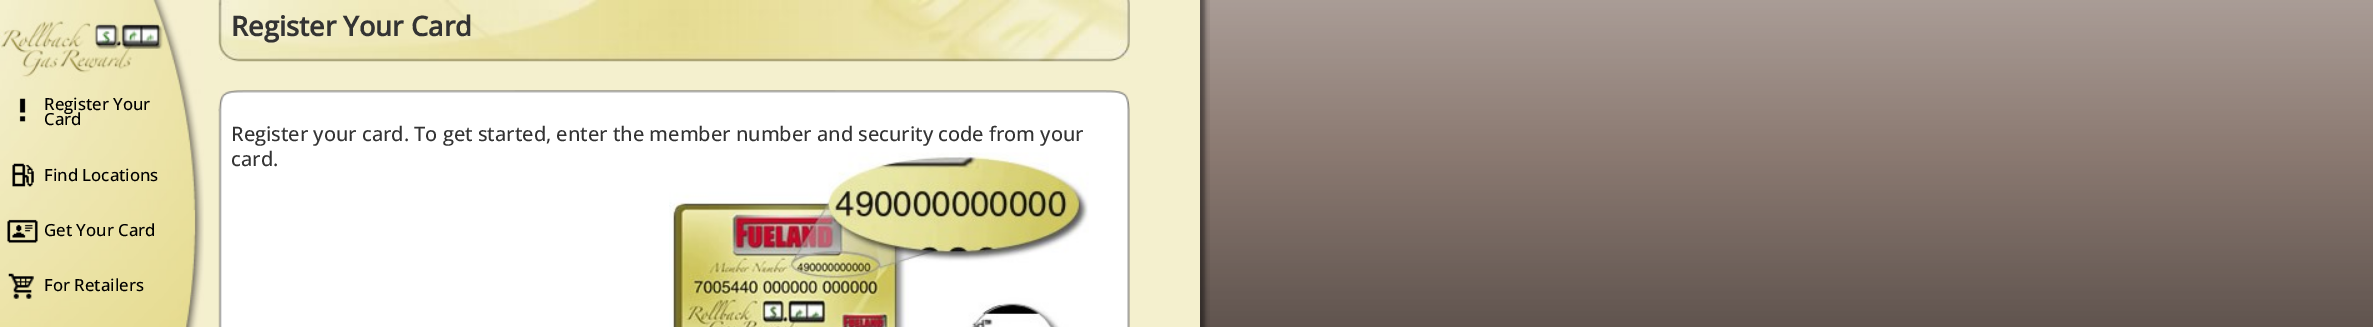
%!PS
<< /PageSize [2373 327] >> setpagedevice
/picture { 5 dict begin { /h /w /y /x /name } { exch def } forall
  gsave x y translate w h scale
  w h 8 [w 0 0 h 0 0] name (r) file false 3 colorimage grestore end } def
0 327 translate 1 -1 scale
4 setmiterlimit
1 setgray
0 0 2373 327 rectfill
(img1.rgb) 1200 0 1173 327 picture
(img2.rgb) 1200 0 10 327 picture
0.957 0.941 0.808 setrgbcolor
204 0 996 327 rectfill
(img3.rgb) 0 0 204 327 picture
(img4.rgb) 218 0 912 62 picture
/OpenSans-Bold [27.25 0 0 -27.25 0 0] selectfont
0.2 setgray
231 36 moveto (Register Your Card) show
(img5.rgb) 19 98 7 24 picture
/OpenSans-Medium [16.75 0 0 -16.75 0 0] selectfont
0 setgray
44 110 moveto (Register Your) show
44 125 moveto (Card) show
(img6.rgb) 12 163 22 24 picture
44 181 moveto (Find Locations) show
(img7.rgb) 7 219 31 24 picture
44 236 moveto (Get Your Card) show
(img8.rgb) 8 273 26 26 picture
44 291 moveto (For Retailers) show
(img9.rgb) 218 90 912 22 picture
(img10.rgb) 218 109 912 218 picture
(img11.rgb) 669 152 420 175 picture
/OpenSans-Medium [20 0 0 -20 0 0] selectfont
0.2 setgray
231 141 moveto (Register your card. To get started, enter the member number and security code from your) show
231 166 moveto (card.) show
showpage
